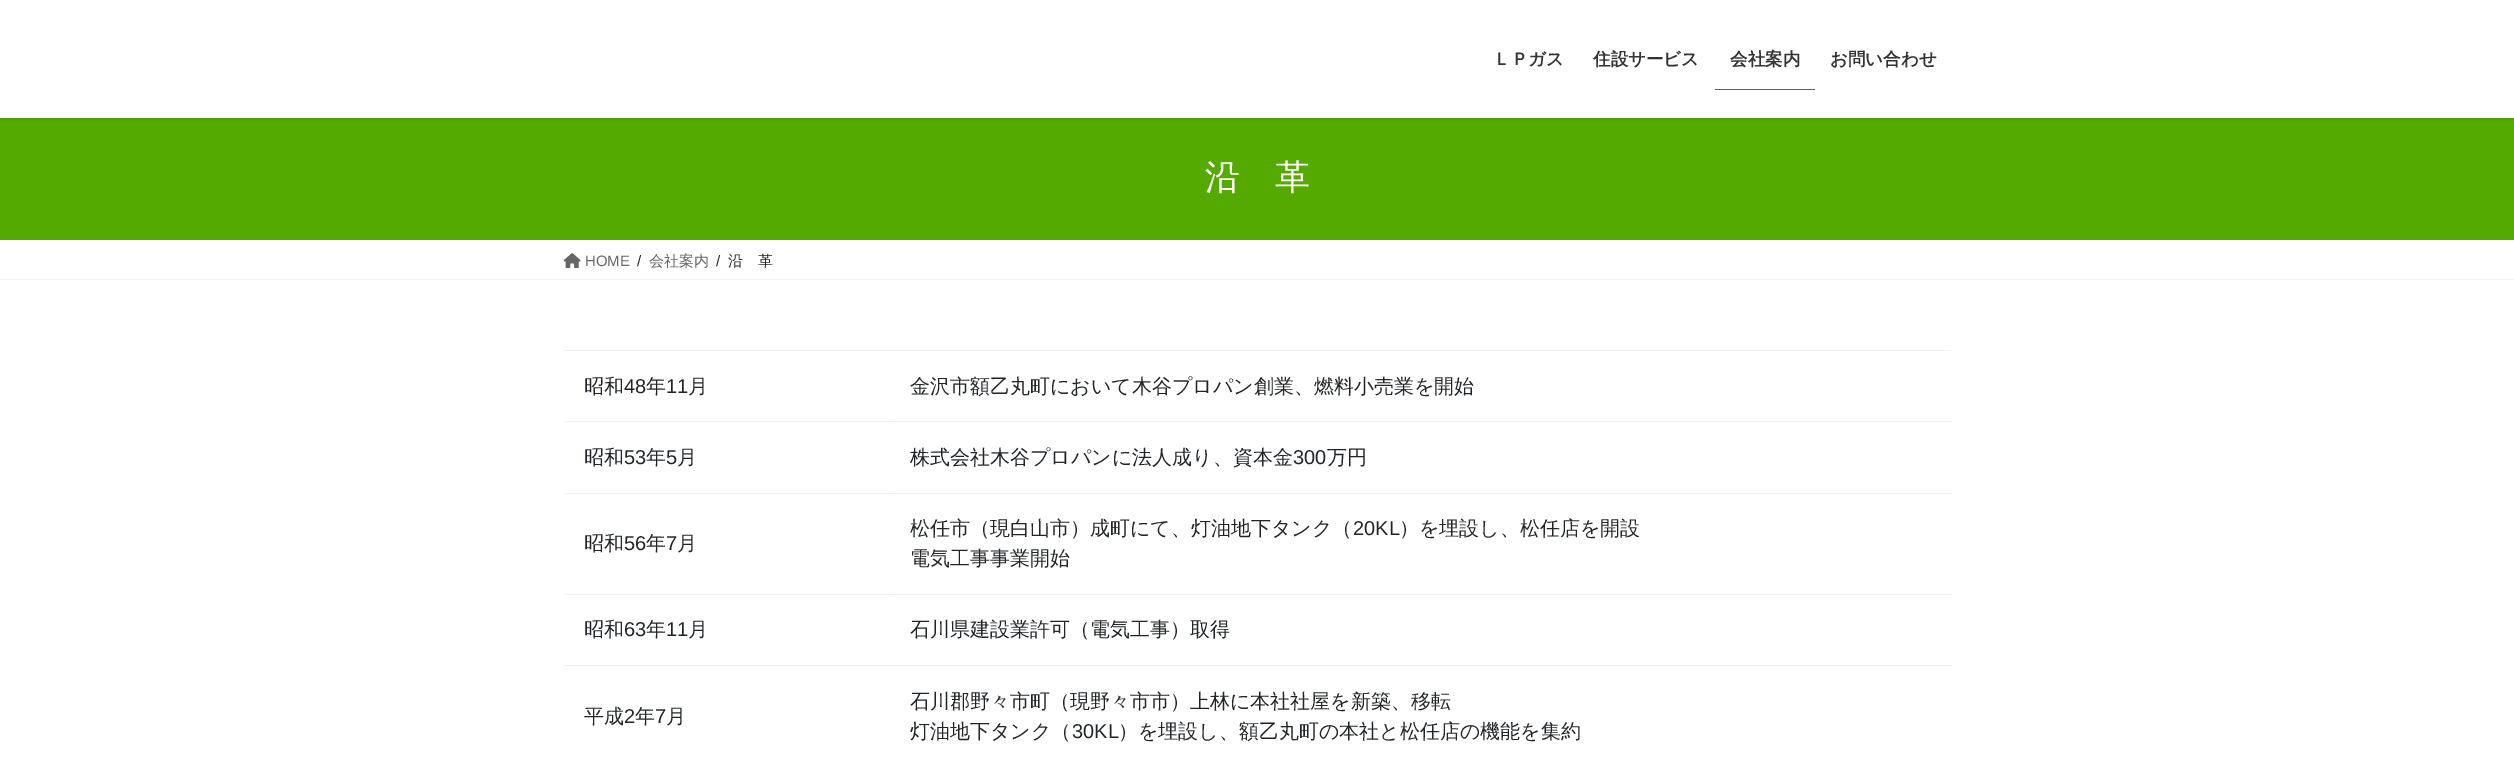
%!PS
<< /PageSize [2514 766] /PageUsesTransparency true >> setpagedevice
/alpha { dup .setfillconstantalpha .setstrokeconstantalpha } def
/roundrect { 5 dict begin { /r /h /w /y /x } { exch def } forall
  x r add y moveto x w add y 2 copy h add r arct x w add y h add x 1 index r arct
  x y h add x y r arct x y 2 copy exch w add exch r arct closepath end } def
/shadow { 12 dict begin { /a /b /q /h /w /y /x } { exch def } forall gsave /was 0 def
  9 -2 -9 { dup b mul 4 div /e exch def 1 sub .425 mul 2.718 exch exp 1 add a .99 .min exch div /now exch def
    1 1 now sub 1 was sub div sub alpha /was now def
    w h .min e 2 mul add 0 gt { x e sub y e sub w e 2 mul add h e 2 mul add
      q e add b .6 mul add w h .min 2 div e add .min 0 .max roundrect fill } if } for grestore end } def
/picture { 5 dict begin { /h /w /y /x /name } { exch def } forall
  gsave x y translate w h scale
  w h 8 [w 0 0 h 0 0] name (r) file false 3 colorimage grestore end } def
0 .pushpdf14devicefilter
0 766 translate 1 -1 scale
4 setmiterlimit
1 setgray
0 0 2514 766 rectfill
0.949 setgray
564 421 1389 1 rectfill
564 493 1389 1 rectfill
564 594 1389 1 rectfill
564 665 1389 1 rectfill
0.333 0.667 0 setrgbcolor
0 118 2514 122 rectfill
0 setgray
0 1 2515 118 0 2 0.1 shadow
1 setgray
0 0 2514 118 rectfill
/WenQuanYiZenHei-Bold [17.5 0 0 -17.5 0 0] selectfont
0.2 setgray
1493 65 moveto (ＬＰガス) show
1593 65 moveto (住設サービス) show
1730 65 moveto (会社案内) show
0 0.6 0.2 setrgbcolor
1715 89 100 1 rectfill
0.2 setgray
1830 65 moveto (お問い合わせ) show
/WenQuanYiZenHei-Medium [35 0 0 -35 0 0] selectfont
1 setgray
1205 189 moveto (沿　革) show
0.949 setgray
0 279 2514 1 rectfill
(img1.rgb) 563 253 18 16 picture
/LiberationSans-Regular [15 0 0 -15 0 0] selectfont
0.4 setgray
585 266 moveto (HOME) show
0.129 0.145 0.161 setrgbcolor
637 266 moveto (/) show
/WenQuanYiZenHei-Medium [15 0 0 -15 0 0] selectfont
0.4 setgray
649 266 moveto (会社案内) show
/LiberationSans-Regular [15 0 0 -15 0 0] selectfont
0.129 0.145 0.161 setrgbcolor
716 266 moveto (/) show
/WenQuanYiZenHei-Medium [15 0 0 -15 0 0] selectfont
728 266 moveto (沿　革) show
0.949 setgray
564 350 1387 1 rectfill
/WenQuanYiZenHei-Medium [20 0 0 -20 0 0] selectfont
0.129 0.145 0.161 setrgbcolor
584 393 moveto (昭和) show
/LiberationSans-Regular [20 0 0 -20 0 0] selectfont
624 393 moveto (48) show
/WenQuanYiZenHei-Medium [20 0 0 -20 0 0] selectfont
646 393 moveto (年) show
/LiberationSans-Regular [20 0 0 -20 0 0] selectfont
666 393 moveto (11) show
/WenQuanYiZenHei-Medium [20 0 0 -20 0 0] selectfont
688 393 moveto (月) show
0.902 setgray
890 421 1 1 rectfill
0.129 0.145 0.161 setrgbcolor
910 393 moveto (金沢市額乙丸町において木谷プロパン創業、燃料小売業を開始) show
584 464 moveto (昭和) show
/LiberationSans-Regular [20 0 0 -20 0 0] selectfont
624 464 moveto (53) show
/WenQuanYiZenHei-Medium [20 0 0 -20 0 0] selectfont
646 464 moveto (年) show
/LiberationSans-Regular [20 0 0 -20 0 0] selectfont
666 464 moveto (5) show
/WenQuanYiZenHei-Medium [20 0 0 -20 0 0] selectfont
677 464 moveto (月) show
0.902 setgray
890 493 1 1 rectfill
0.129 0.145 0.161 setrgbcolor
910 464 moveto (株式会社木谷プロパンに法人成り、資本金) show
/LiberationSans-Regular [20 0 0 -20 0 0] selectfont
1293 464 moveto (300) show
/WenQuanYiZenHei-Medium [20 0 0 -20 0 0] selectfont
1327 464 moveto (万円) show
584 550 moveto (昭和) show
/LiberationSans-Regular [20 0 0 -20 0 0] selectfont
624 550 moveto (56) show
/WenQuanYiZenHei-Medium [20 0 0 -20 0 0] selectfont
646 550 moveto (年) show
/LiberationSans-Regular [20 0 0 -20 0 0] selectfont
666 550 moveto (7) show
/WenQuanYiZenHei-Medium [20 0 0 -20 0 0] selectfont
677 550 moveto (月) show
0.902 setgray
890 594 1 1 rectfill
0.129 0.145 0.161 setrgbcolor
910 535 moveto (松任市（現白山市）成町にて、灯油地下タンク（) show
/LiberationSans-Regular [20 0 0 -20 0 0] selectfont
1353 535 moveto (20KL) show
/WenQuanYiZenHei-Medium [20 0 0 -20 0 0] selectfont
1399 535 moveto (）を埋設し、松任店を開設) show
910 565 moveto (電気工事事業開始) show
584 636 moveto (昭和) show
/LiberationSans-Regular [20 0 0 -20 0 0] selectfont
624 636 moveto (63) show
/WenQuanYiZenHei-Medium [20 0 0 -20 0 0] selectfont
646 636 moveto (年) show
/LiberationSans-Regular [20 0 0 -20 0 0] selectfont
666 636 moveto (11) show
/WenQuanYiZenHei-Medium [20 0 0 -20 0 0] selectfont
688 636 moveto (月) show
0.902 setgray
890 665 1 1 rectfill
0.129 0.145 0.161 setrgbcolor
910 636 moveto (石川県建設業許可（電気工事）取得) show
584 723 moveto (平成) show
/LiberationSans-Regular [20 0 0 -20 0 0] selectfont
624 723 moveto (2) show
/WenQuanYiZenHei-Medium [20 0 0 -20 0 0] selectfont
635 723 moveto (年) show
/LiberationSans-Regular [20 0 0 -20 0 0] selectfont
655 723 moveto (7) show
/WenQuanYiZenHei-Medium [20 0 0 -20 0 0] selectfont
666 723 moveto (月) show
910 708 moveto (石川郡野々市町（現野々市市）上林に本社社屋を新築、移転) show
910 738 moveto (灯油地下タンク（) show
/LiberationSans-Regular [20 0 0 -20 0 0] selectfont
1072 738 moveto (30KL) show
/WenQuanYiZenHei-Medium [20 0 0 -20 0 0] selectfont
1118 738 moveto (）を埋設し、額乙丸町の本社と松任店の機能を集約) show
.poppdf14devicefilter showpage
